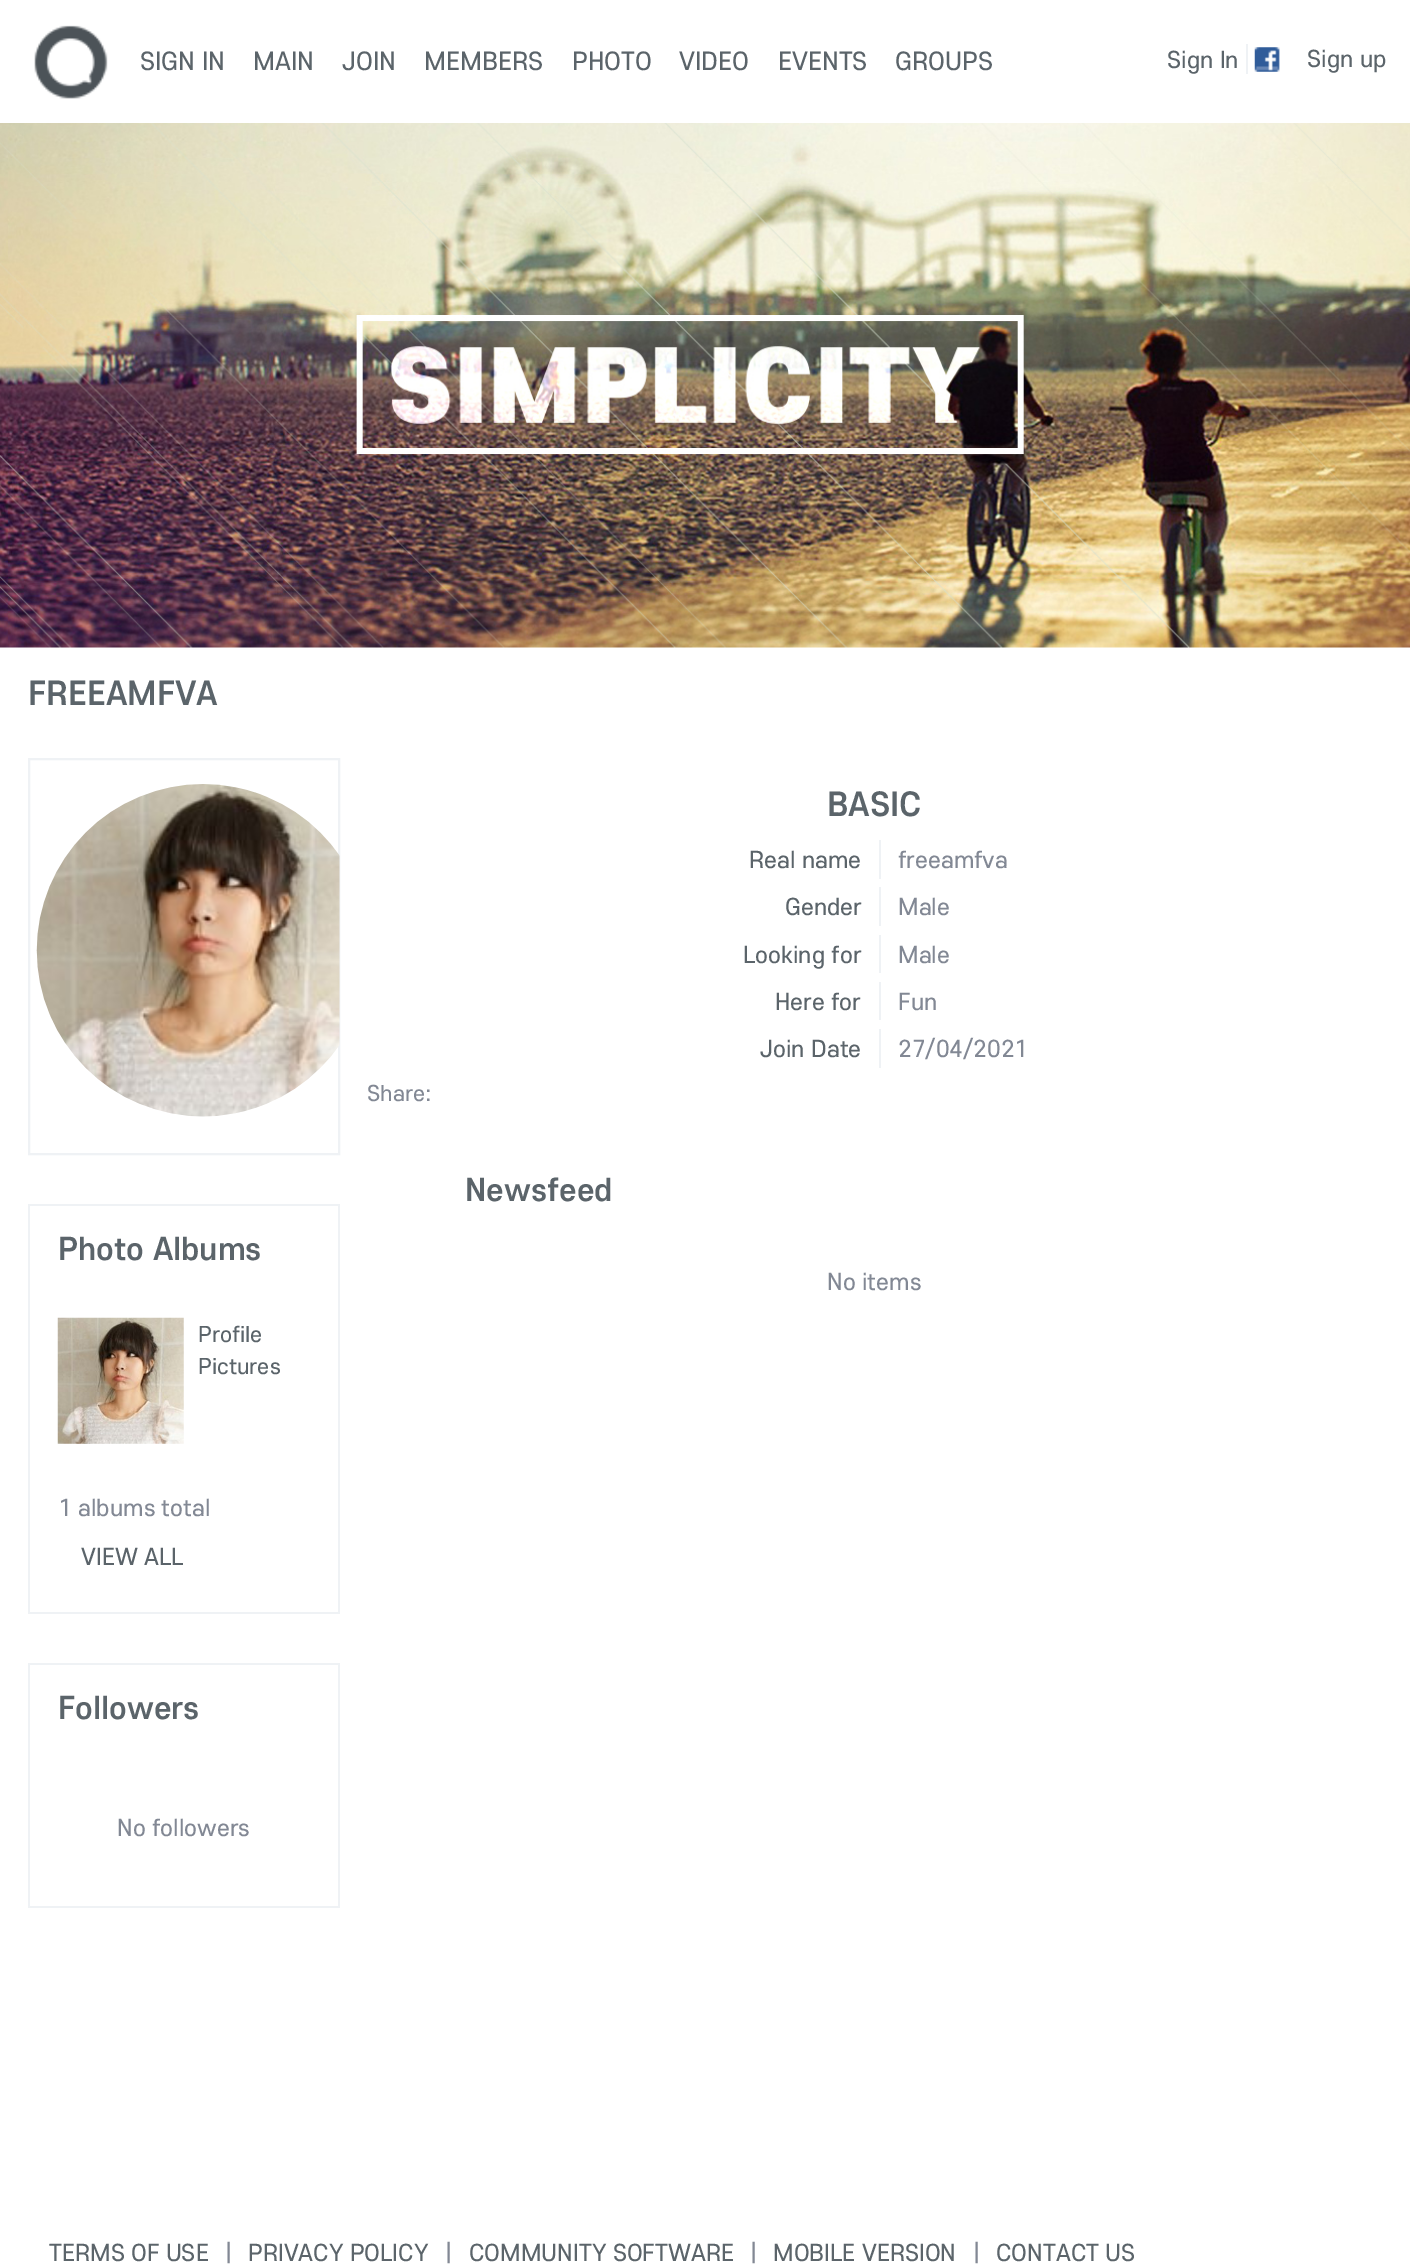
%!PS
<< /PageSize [1410 2268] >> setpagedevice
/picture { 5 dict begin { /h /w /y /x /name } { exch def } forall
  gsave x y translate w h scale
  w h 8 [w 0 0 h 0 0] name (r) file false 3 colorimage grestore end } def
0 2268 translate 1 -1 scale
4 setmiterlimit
1 setgray
0 0 1410 2268 rectfill
(img1.rgb) 34 25 74 74 picture
/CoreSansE-Regular [26.25 0 0 -26.25 0 0] selectfont
0.357 0.392 0.416 setrgbcolor
140 70 moveto (SIGN IN) show
253 70 moveto (MAIN) show
342 70 moveto (JOIN) show
424 70 moveto (MEMBERS) show
572 70 moveto (PHOTO) show
679 70 moveto (VIDEO) show
778 70 moveto (EVENTS) show
895 70 moveto (GROUPS) show
0.937 0.949 0.961 setrgbcolor
1246 44 2 30 rectfill
/CoreSansE-Regular [24.5 0 0 -24.5 0 0] selectfont
0.357 0.392 0.416 setrgbcolor
1167 68 moveto (Sign In) show
(img2.rgb) 1254 47 26 25 picture
1307 67 moveto (Sign up) show
(img3.rgb) 0 123 1410 525 picture
/CoreSansE-Medium [35 0 0 -35 0 0] selectfont
28 705 moveto (FREEAMFVA) show
827 816 moveto (BASIC) show
/CoreSansE-Regular [24.5 0 0 -24.5 0 0] selectfont
749 868 moveto (Real name) show
0.937 0.949 0.961 setrgbcolor
879 840 2 39 rectfill
0.51 0.533 0.58 setrgbcolor
898 868 moveto (freeamfva) show
0.357 0.392 0.416 setrgbcolor
785 915 moveto (Gender) show
0.937 0.949 0.961 setrgbcolor
879 887 2 39 rectfill
0.51 0.533 0.58 setrgbcolor
898 915 moveto (Male) show
0.357 0.392 0.416 setrgbcolor
743 963 moveto (Looking for) show
0.937 0.949 0.961 setrgbcolor
879 935 2 38 rectfill
0.51 0.533 0.58 setrgbcolor
898 963 moveto (Male) show
0.357 0.392 0.416 setrgbcolor
775 1010 moveto (Here for) show
0.937 0.949 0.961 setrgbcolor
879 982 2 38 rectfill
0.51 0.533 0.58 setrgbcolor
898 1010 moveto (Fun) show
0.357 0.392 0.416 setrgbcolor
760 1057 moveto (Join Date) show
0.937 0.949 0.961 setrgbcolor
879 1029 2 39 rectfill
0.51 0.533 0.58 setrgbcolor
898 1057 moveto (27/04/2021) show
gsave
368 758 1015 637 rectclip
/CoreSansE-Regular [23 0 0 -23 0 0] selectfont
367 1101 moveto (Share:) show
grestore
/CoreSansE-Medium [33.25 0 0 -33.25 0 0] selectfont
0.357 0.392 0.416 setrgbcolor
465 1201 moveto (Newsfeed) show
/CoreSansE-Regular [24.5 0 0 -24.5 0 0] selectfont
0.51 0.533 0.58 setrgbcolor
827 1290 moveto (No items) show
0.937 0.949 0.961 setrgbcolor
2 setlinewidth
29 759 310 395 rectstroke
(img4.rgb) 36 784 304 333 picture
28 1204 312 2 rectfill
338 1204 2 410 rectfill
28 1204 2 86 rectfill
/CoreSansE-Medium [33.25 0 0 -33.25 0 0] selectfont
0.357 0.392 0.416 setrgbcolor
58 1260 moveto (Photo Albums) show
0.937 0.949 0.961 setrgbcolor
28 1612 312 2 rectfill
28 1290 2 324 rectfill
(img5.rgb) 57 1317 127 127 picture
/CoreSansE-Regular [23 0 0 -23 0 0] selectfont
0.357 0.392 0.416 setrgbcolor
198 1342 moveto (Profile) show
198 1374 moveto (Pictures) show
/CoreSansE-Regular [24.5 0 0 -24.5 0 0] selectfont
0.51 0.533 0.58 setrgbcolor
58 1516 moveto (1 albums total) show
0.357 0.392 0.416 setrgbcolor
81 1565 moveto (VIEW ALL) show
0.937 0.949 0.961 setrgbcolor
28 1663 312 2 rectfill
338 1663 2 245 rectfill
28 1663 2 85 rectfill
/CoreSansE-Medium [33.25 0 0 -33.25 0 0] selectfont
0.357 0.392 0.416 setrgbcolor
58 1719 moveto (Followers) show
0.937 0.949 0.961 setrgbcolor
28 1906 312 2 rectfill
28 1748 2 160 rectfill
/CoreSansE-Regular [24.5 0 0 -24.5 0 0] selectfont
0.51 0.533 0.58 setrgbcolor
117 1836 moveto (No followers) show
0.357 0.392 0.416 setrgbcolor
49 2261 moveto (TERMS OF USE) show
0.51 0.533 0.58 setrgbcolor
225 2261 moveto (|) show
0.357 0.392 0.416 setrgbcolor
248 2261 moveto (PRIVACY POLICY) show
0.51 0.533 0.58 setrgbcolor
445 2261 moveto (|) show
0.357 0.392 0.416 setrgbcolor
469 2261 moveto (COMMUNITY SOFTWARE) show
0.51 0.533 0.58 setrgbcolor
750 2261 moveto (|) show
0.357 0.392 0.416 setrgbcolor
773 2261 moveto (MOBILE VERSION) show
0.51 0.533 0.58 setrgbcolor
973 2261 moveto (|) show
0.357 0.392 0.416 setrgbcolor
996 2261 moveto (CONTACT US) show
showpage
